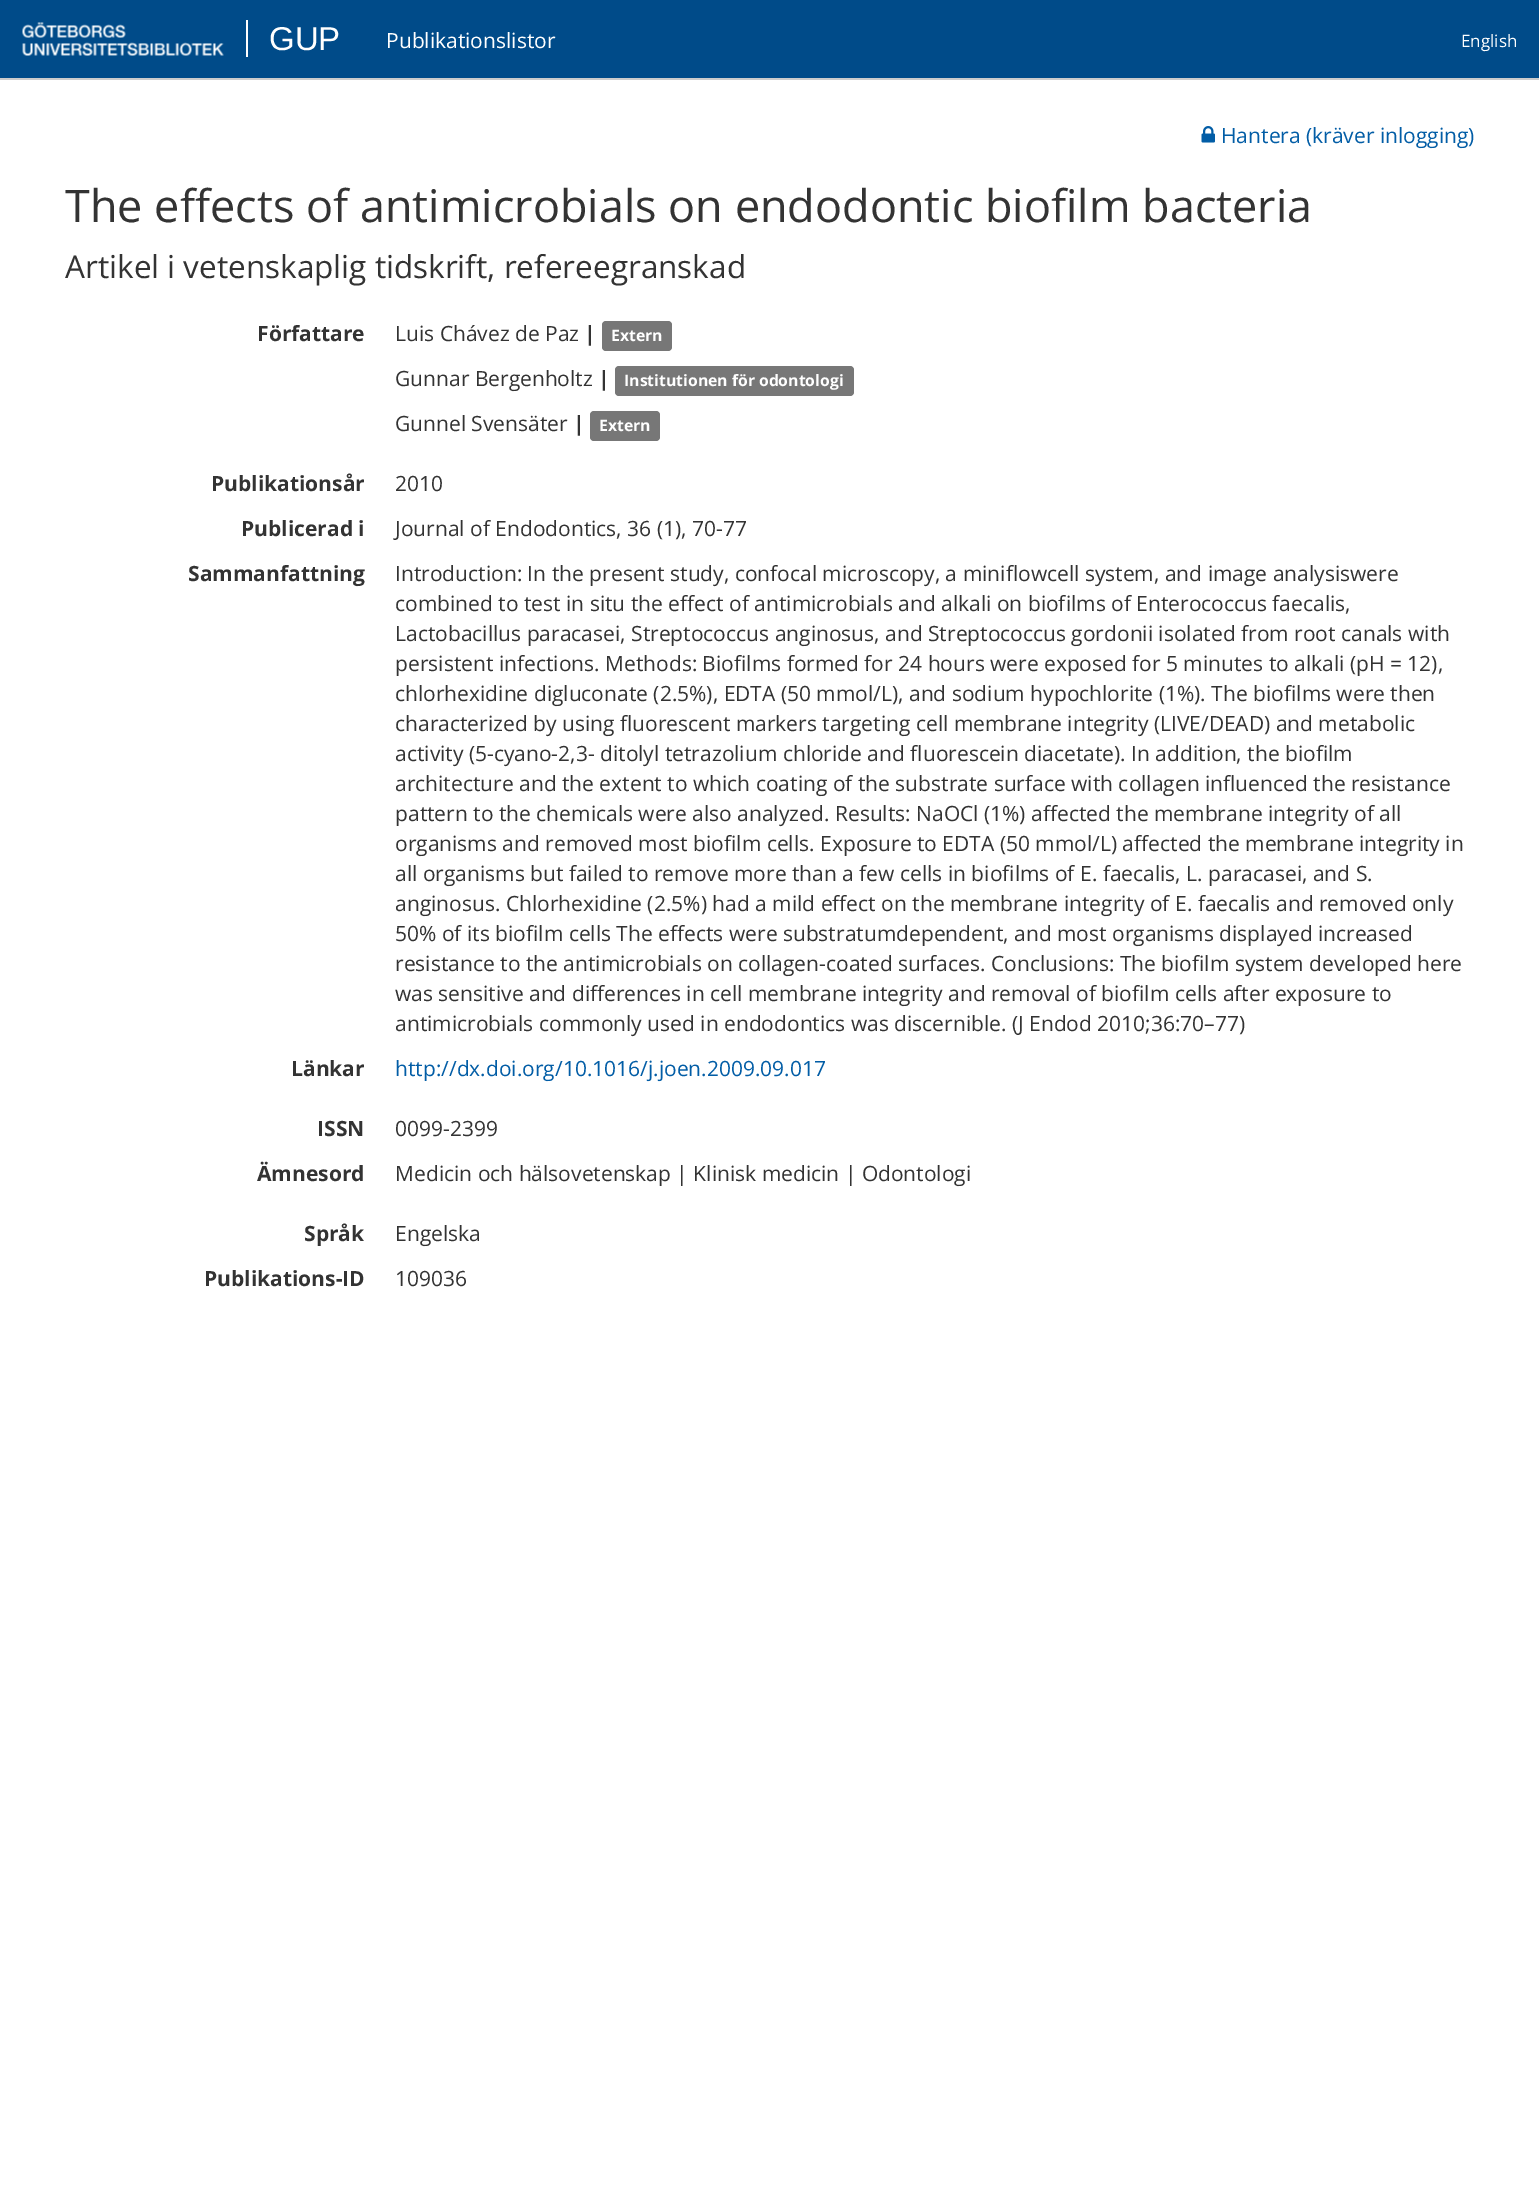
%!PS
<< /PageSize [1539 2212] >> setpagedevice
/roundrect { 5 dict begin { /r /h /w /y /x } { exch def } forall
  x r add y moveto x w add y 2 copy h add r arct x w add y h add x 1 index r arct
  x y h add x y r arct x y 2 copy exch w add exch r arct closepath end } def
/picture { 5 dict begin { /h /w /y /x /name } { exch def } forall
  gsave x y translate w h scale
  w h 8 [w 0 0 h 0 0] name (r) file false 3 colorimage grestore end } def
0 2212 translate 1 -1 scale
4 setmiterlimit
1 setgray
0 0 1539 2212 rectfill
0 0.294 0.537 setrgbcolor
0 0 1539 78 rectfill
0.8 setgray
0 78 1539 2 rectfill
(img1.rgb) 22 22 202 34 picture
1 setgray
246 20 2 37 rectfill
/LiberationSans-Regular [33 0 0 -33 0 0] selectfont
269 50 moveto (GUP) show
/OpenSans-Regular [21 0 0 -21 0 0] selectfont
386 48 moveto (Publikationslistor) show
/OpenSans-Regular [17 0 0 -17 0 0] selectfont
1461 47 moveto (English) show
(img2.rgb) 1201 126 14 17 picture
/OpenSans-Regular [21 0 0 -21 0 0] selectfont
0.008 0.365 0.651 setrgbcolor
1221 143 moveto (Hantera \(kräver inlogging\)) show
/OpenSans-Regular [45 0 0 -45 0 0] selectfont
0.2 setgray
65 222 moveto (The effects of antimicrobials on endodontic biofilm bacteria) show
/OpenSans-Regular [31.5 0 0 -31.5 0 0] selectfont
65 278 moveto (Artikel i vetenskaplig tidskrift, refereegranskad) show
/OpenSans-Bold [21 0 0 -21 0 0] selectfont
257 341 moveto (Författare) show
/OpenSans-Regular [21 0 0 -21 0 0] selectfont
395 341 moveto (Luis Chávez de Paz) show
/OpenSans-Bold [21 0 0 -21 0 0] selectfont
584 341 moveto (|) show
0.467 setgray
602 321 70 30 4 roundrect fill
/OpenSans-Bold [15.75 0 0 -15.75 0 0] selectfont
1 setgray
611 341 moveto (Extern) show
/OpenSans-Regular [21 0 0 -21 0 0] selectfont
0.2 setgray
395 386 moveto (Gunnar Bergenholtz) show
/OpenSans-Bold [21 0 0 -21 0 0] selectfont
598 386 moveto (|) show
0.467 setgray
615 366 239 30 4 roundrect fill
/OpenSans-Bold [15.75 0 0 -15.75 0 0] selectfont
1 setgray
624 386 moveto (Institutionen för odontologi) show
/OpenSans-Regular [21 0 0 -21 0 0] selectfont
0.2 setgray
395 431 moveto (Gunnel Svensäter) show
/OpenSans-Bold [21 0 0 -21 0 0] selectfont
573 431 moveto (|) show
0.467 setgray
590 411 70 30 4 roundrect fill
/OpenSans-Bold [15.75 0 0 -15.75 0 0] selectfont
1 setgray
599 431 moveto (Extern) show
/OpenSans-Bold [21 0 0 -21 0 0] selectfont
0.2 setgray
211 491 moveto (Publikationsår) show
/OpenSans-Regular [21 0 0 -21 0 0] selectfont
395 491 moveto (2010) show
/OpenSans-Bold [21 0 0 -21 0 0] selectfont
241 536 moveto (Publicerad i) show
/OpenSans-Regular [21 0 0 -21 0 0] selectfont
395 536 moveto (Journal of Endodontics, 36 \(1\), 70-77) show
/OpenSans-Bold [21 0 0 -21 0 0] selectfont
188 581 moveto (Sammanfattning) show
/OpenSans-Regular [21 0 0 -21 0 0] selectfont
395 581 moveto (Introduction: In the present study, confocal microscopy, a miniflowcell system, and image analysiswere) show
395 611 moveto (combined to test in situ the effect of antimicrobials and alkali on biofilms of Enterococcus faecalis,) show
395 641 moveto (Lactobacillus paracasei, Streptococcus anginosus, and Streptococcus gordonii isolated from root canals with) show
395 671 moveto (persistent infections. Methods: Biofilms formed for 24 hours were exposed for 5 minutes to alkali \(pH = 12\),) show
395 701 moveto (chlorhexidine digluconate \(2.5%\), EDTA \(50 mmol/L\), and sodium hypochlorite \(1%\). The biofilms were then) show
395 731 moveto (characterized by using fluorescent markers targeting cell membrane integrity \(LIVE/DEAD\) and metabolic) show
395 761 moveto (activity \(5-cyano-2,3- ditolyl tetrazolium chloride and fluorescein diacetate\). In addition, the biofilm) show
395 791 moveto (architecture and the extent to which coating of the substrate surface with collagen influenced the resistance) show
395 821 moveto (pattern to the chemicals were also analyzed. Results: NaOCl \(1%\) affected the membrane integrity of all) show
395 851 moveto (organisms and removed most biofilm cells. Exposure to EDTA \(50 mmol/L\) affected the membrane integrity in) show
395 881 moveto (all organisms but failed to remove more than a few cells in biofilms of E. faecalis, L. paracasei, and S.) show
395 911 moveto (anginosus. Chlorhexidine \(2.5%\) had a mild effect on the membrane integrity of E. faecalis and removed only) show
395 941 moveto (50% of its biofilm cells The effects were substratumdependent, and most organisms displayed increased) show
395 971 moveto (resistance to the antimicrobials on collagen-coated surfaces. Conclusions: The biofilm system developed here) show
395 1001 moveto (was sensitive and differences in cell membrane integrity and removal of biofilm cells after exposure to) show
395 1031 moveto (antimicrobials commonly used in endodontics was discernible. \(J Endod 2010;36:70–77\)) show
/OpenSans-Bold [21 0 0 -21 0 0] selectfont
291 1076 moveto (Länkar) show
/OpenSans-Regular [21 0 0 -21 0 0] selectfont
0.008 0.365 0.651 setrgbcolor
395 1076 moveto (http://dx.doi.org/10.1016/j.joen.2009.09.017) show
/OpenSans-Bold [21 0 0 -21 0 0] selectfont
0.2 setgray
317 1136 moveto (ISSN) show
/OpenSans-Regular [21 0 0 -21 0 0] selectfont
395 1136 moveto (0099-2399) show
/OpenSans-Bold [21 0 0 -21 0 0] selectfont
257 1181 moveto (Ämnesord) show
/OpenSans-Regular [21 0 0 -21 0 0] selectfont
395 1181 moveto (Medicin och hälsovetenskap | Klinisk medicin | Odontologi) show
/OpenSans-Bold [21 0 0 -21 0 0] selectfont
304 1241 moveto (Språk) show
/OpenSans-Regular [21 0 0 -21 0 0] selectfont
395 1241 moveto (Engelska) show
/OpenSans-Bold [21 0 0 -21 0 0] selectfont
204 1286 moveto (Publikations-ID) show
/OpenSans-Regular [21 0 0 -21 0 0] selectfont
395 1286 moveto (109036) show
showpage
